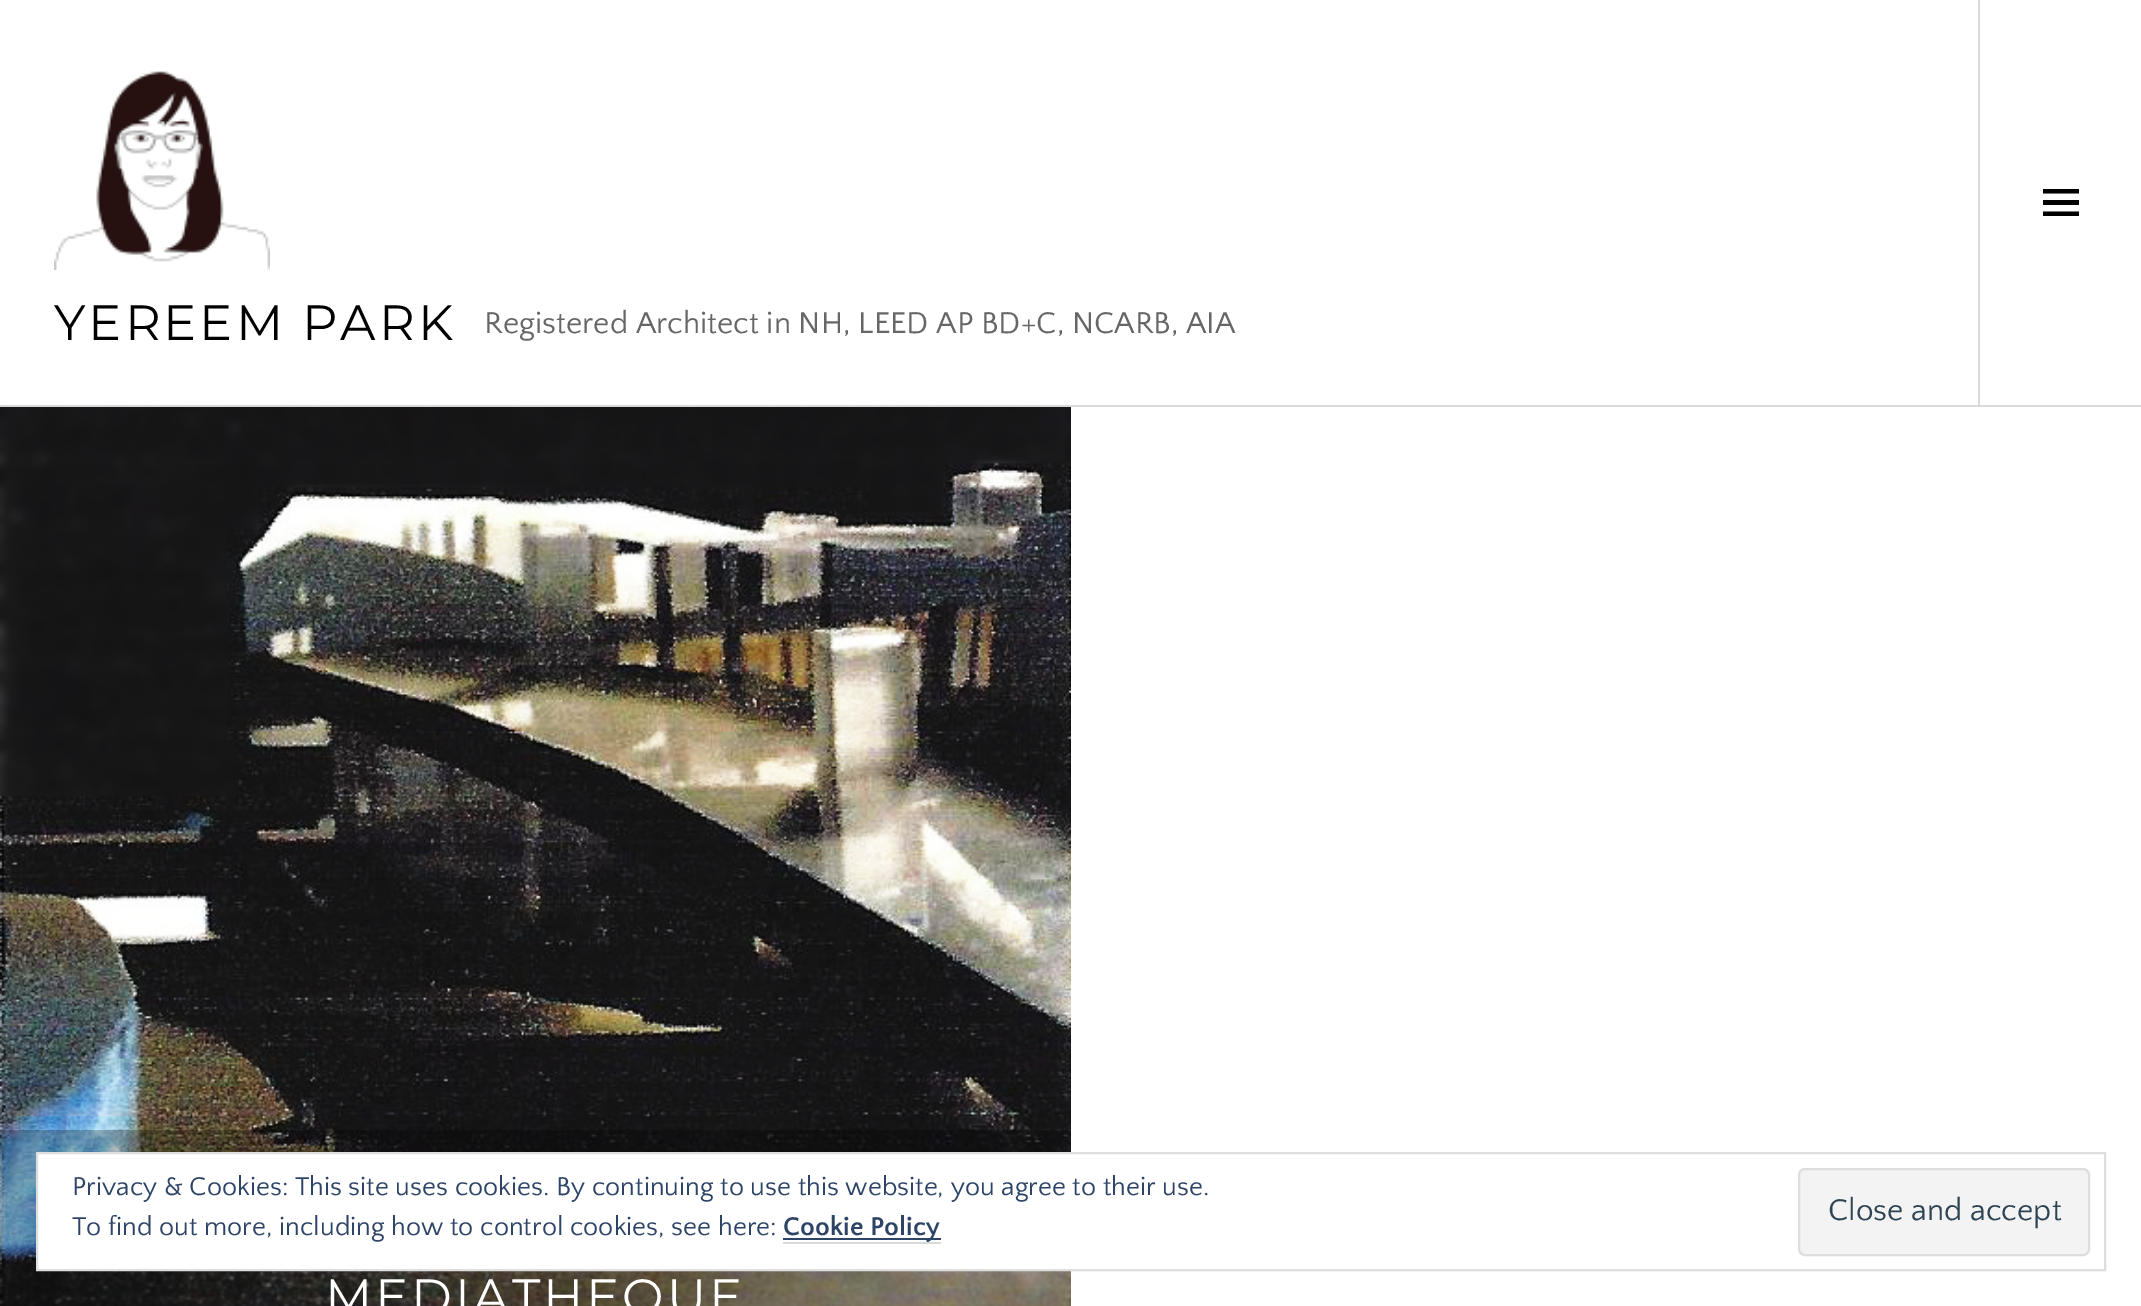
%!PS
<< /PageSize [2141 1306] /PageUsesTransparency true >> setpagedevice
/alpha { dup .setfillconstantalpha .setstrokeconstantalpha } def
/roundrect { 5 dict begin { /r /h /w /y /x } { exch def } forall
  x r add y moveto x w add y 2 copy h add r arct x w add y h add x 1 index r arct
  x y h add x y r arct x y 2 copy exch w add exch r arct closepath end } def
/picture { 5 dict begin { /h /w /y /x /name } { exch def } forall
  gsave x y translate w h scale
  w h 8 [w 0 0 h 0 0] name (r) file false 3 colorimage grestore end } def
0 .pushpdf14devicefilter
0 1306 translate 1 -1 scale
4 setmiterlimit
1 setgray
0 0 2141 1306 rectfill
0.851 setgray
0 405 2141 2 rectfill
(img1.rgb) 54 71 216 199 picture
/Montserrat-Thin [49.5 0 0 -49.5 0 0] selectfont
0 setgray
54 340 moveto 3 0 (YEREEM PARK) ashow
/QuattrocentoSans-Regular [31.5 0 0 -31.5 0 0] selectfont
0.4 setgray
484 333 moveto (Registered Architect in NH, LEED AP BD+C, NCARB, AIA) show
0.851 setgray
1978 0 2 405 rectfill
0 setgray
newpath 2043 216 moveto 2043 211.5 lineto 2079 211.5 lineto 2079 216 lineto closepath 2043 189 moveto 2079 189 lineto 2079 193.5 lineto 2043 193.5 lineto closepath 2043 205 moveto 2043 200 lineto 2079 200 lineto 2079 205 lineto closepath fill
(img2.rgb) 0 407 1071 899 picture
0.25 alpha
0 1130 1071 176 rectfill
/Montserrat-Thin [49.5 0 0 -49.5 0 0] selectfont
1 alpha
1 setgray
325 1314 moveto 3 0 (MEDIATHEQUE) ashow
38 1154 1033 115 rectfill
0.871 setgray
2 setlinewidth
37 1153 2068 117 rectstroke
/QuattrocentoSans-Regular [27 0 0 -27 0 0] selectfont
0.18 0.267 0.404 setrgbcolor
72 1195 moveto (Privacy & Cookies: This site uses cookies. By continuing to use this website, you agree to their use.) show
72 1235 moveto (To find out more, including how to control cookies, see here:) show
783 1238 158 2 rectfill
/QuattrocentoSans-Bold [27 0 0 -27 0 0] selectfont
783 1235 moveto (Cookie Policy) show
0.851 setgray
783 1242 158 2 rectfill
0.953 setgray
1799 1169 290 86 6 roundrect gsave fill grestore
0.871 setgray
stroke
/QuattrocentoSans-Regular [31.5 0 0 -31.5 0 0] selectfont
0.18 0.267 0.325 setrgbcolor
1828 1220 moveto (Close and accept) show
.poppdf14devicefilter showpage
